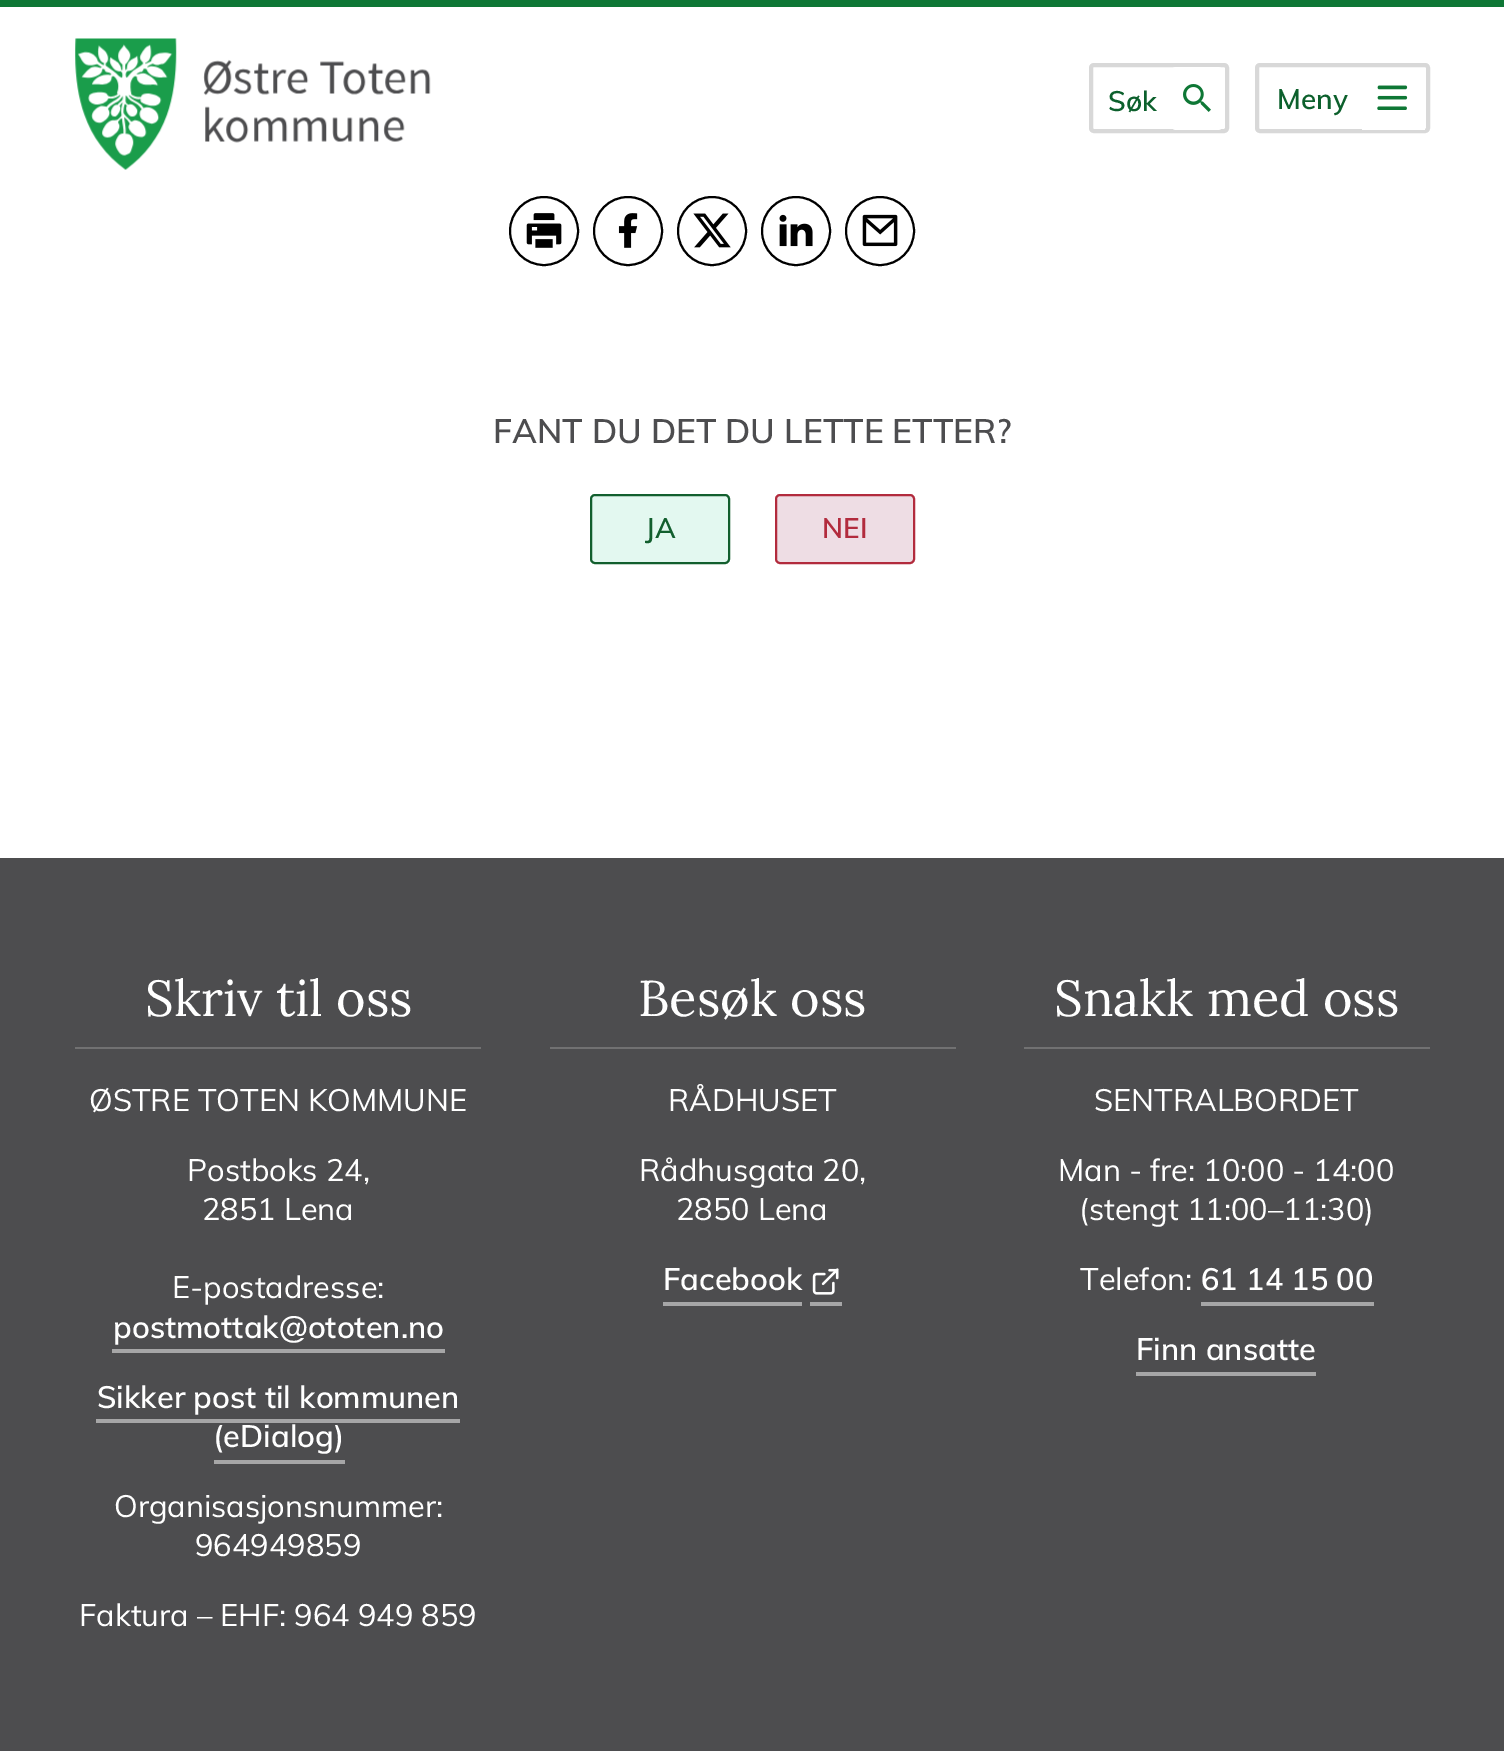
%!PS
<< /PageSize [1504 1751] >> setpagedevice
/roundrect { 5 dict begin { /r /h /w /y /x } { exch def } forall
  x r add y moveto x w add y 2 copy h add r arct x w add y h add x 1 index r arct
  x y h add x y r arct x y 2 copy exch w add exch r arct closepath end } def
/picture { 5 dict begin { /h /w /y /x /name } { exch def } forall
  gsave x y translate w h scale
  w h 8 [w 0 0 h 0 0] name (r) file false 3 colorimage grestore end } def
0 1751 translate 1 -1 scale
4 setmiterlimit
1 setgray
0 0 1504 1751 rectfill
0.055 0.467 0.208 setrgbcolor
0 0 1504 7 rectfill
(img1.rgb) 75 38 356 132 picture
0.847 setgray
4 setlinewidth
1091 65 136 66 3 roundrect stroke
/Muli-SemiBold [28 0 0 -28 0 0] selectfont
0.047 0.376 0.173 setrgbcolor
1108 111 moveto (Søk) show
1 setgray
1171 67 52 63 5 roundrect fill
(img2.rgb) 1183 84 28 28 picture
0.847 setgray
1257 65 171 66 3 roundrect stroke
0.047 0.376 0.173 setrgbcolor
1277 109 moveto (Meny) show
1 setgray
1362 129 63 1 rectfill
(img3.rgb) 1377 85 31 25 picture
0 setgray
2 setlinewidth
newpath 544 231 34 0 360 arc closepath stroke
(img4.rgb) 526 213 36 35 picture
newpath 628 231 34 0 360 arc closepath stroke
(img5.rgb) 618 213 20 35 picture
newpath 712 231 34 0 360 arc closepath stroke
(img6.rgb) 693 213 38 35 picture
newpath 796 231 34 0 360 arc closepath stroke
(img7.rgb) 779 214 34 33 picture
newpath 880 231 34 0 360 arc closepath stroke
(img8.rgb) 862 214 36 33 picture
/Muli-SemiBold [33.6 0 0 -33.6 0 0] selectfont
0.302 0.302 0.31 setrgbcolor
493 443 moveto (FANT DU DET DU LETTE ETTER?) show
0.89 0.973 0.941 setrgbcolor
591 495 138 68 4 roundrect gsave fill grestore
0.071 0.373 0.18 setrgbcolor
stroke
/Muli-SemiBold [28 0 0 -28 0 0] selectfont
645 538 moveto (JA) show
0.933 0.867 0.894 setrgbcolor
776 495 138 68 4 roundrect gsave fill grestore
0.698 0.169 0.239 setrgbcolor
stroke
822 538 moveto (NEI) show
0.302 0.302 0.31 setrgbcolor
0 858 1504 893 rectfill
0.443 0.443 0.447 setrgbcolor
75 1047 406 2 rectfill
/Lora-Regular [50.5 0 0 -50.5 0 0] selectfont
1 setgray
145 1016 moveto (Skriv til oss) show
/Muli-Regular [30.75 0 0 -30.75 0 0] selectfont
89 1111 moveto (ØSTRE TOTEN KOMMUNE) show
187 1181 moveto (Postboks 24,) show
202 1220 moveto (2851 Lena) show
172 1298 moveto (E-postadresse:) show
/Muli-SemiBold [30.75 0 0 -30.75 0 0] selectfont
113 1338 moveto (postmottak@ototen.no) show
0.651 0.651 0.655 setrgbcolor
112 1349 333 4 rectfill
1 setgray
97 1408 moveto (Sikker post til kommunen) show
213 1447 moveto (\(eDialog\)) show
0.651 0.651 0.655 setrgbcolor
96 1419 364 4 rectfill
214 1460 131 4 rectfill
/Muli-Regular [30.75 0 0 -30.75 0 0] selectfont
1 setgray
114 1517 moveto (Organisasjonsnummer:) show
195 1556 moveto (964949859) show
79 1626 moveto (Faktura – EHF: 964 949 859) show
0.443 0.443 0.447 setrgbcolor
550 1047 406 2 rectfill
/Lora-Regular [50.5 0 0 -50.5 0 0] selectfont
1 setgray
638 1016 moveto (Besøk oss) show
/Muli-Regular [30.75 0 0 -30.75 0 0] selectfont
668 1111 moveto (RÅDHUSET) show
639 1181 moveto (Rådhusgata 20,) show
676 1220 moveto (2850 Lena) show
/Muli-SemiBold [30.75 0 0 -30.75 0 0] selectfont
663 1290 moveto (Facebook) show
0.651 0.651 0.655 setrgbcolor
663 1302 139 4 rectfill
810 1302 32 4 rectfill
(img9.rgb) 812 1268 27 27 picture
0.443 0.443 0.447 setrgbcolor
1024 1047 406 2 rectfill
/Lora-Regular [50.5 0 0 -50.5 0 0] selectfont
1 setgray
1054 1016 moveto (Snakk med oss) show
/Muli-Regular [30.75 0 0 -30.75 0 0] selectfont
1094 1111 moveto (SENTRALBORDET) show
1058 1181 moveto (Man - fre: 10:00 - 14:00) show
1079 1220 moveto (\(stengt 11:00–11:30\)) show
1080 1290 moveto (Telefon:) show
/Muli-SemiBold [30.75 0 0 -30.75 0 0] selectfont
1201 1290 moveto (61 14 15 00) show
0.651 0.651 0.655 setrgbcolor
1201 1302 173 4 rectfill
1 setgray
1136 1360 moveto (Finn ansatte) show
0.651 0.651 0.655 setrgbcolor
1136 1372 180 4 rectfill
showpage
